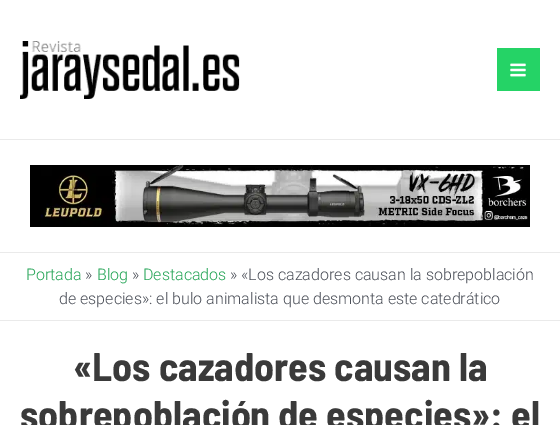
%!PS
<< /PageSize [560 425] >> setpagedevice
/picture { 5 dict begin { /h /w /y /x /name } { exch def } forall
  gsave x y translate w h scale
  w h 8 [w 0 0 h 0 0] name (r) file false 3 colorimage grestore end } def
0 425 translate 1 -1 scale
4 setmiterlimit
1 setgray
0 0 560 425 rectfill
0.918 setgray
0 139 560 1 rectfill
(img1.rgb) 20 41 220 58 picture
0.145 0.827 0.4 setrgbcolor
497 48 43 43 rectfill
(img2.rgb) 510 63 16 14 picture
0.918 setgray
0 252 560 1 rectfill
(img3.rgb) 30 165 500 62 picture
0 320 560 1 rectfill
/Roboto-Light [16 0 0 -16 0 0] selectfont
0.137 0.643 0.333 setrgbcolor
26 280 moveto (Portada) show
0.294 0.31 0.345 setrgbcolor
85 280 moveto (») show
0.137 0.643 0.333 setrgbcolor
97 280 moveto (Blog) show
0.294 0.31 0.345 setrgbcolor
132 280 moveto (») show
0.137 0.643 0.333 setrgbcolor
143 280 moveto (Destacados) show
0.294 0.31 0.345 setrgbcolor
230 280 moveto (» «Los cazadores causan la sobrepoblación) show
59 304 moveto (de especies»: el bulo animalista que desmonta este catedrático) show
/BarlowSemiCondensed-Bold [40 0 0 -40 0 0] selectfont
0.227 setgray
73 381 moveto («Los cazadores causan la) show
20 429 moveto (sobrepoblación de especies»: el) show
showpage
